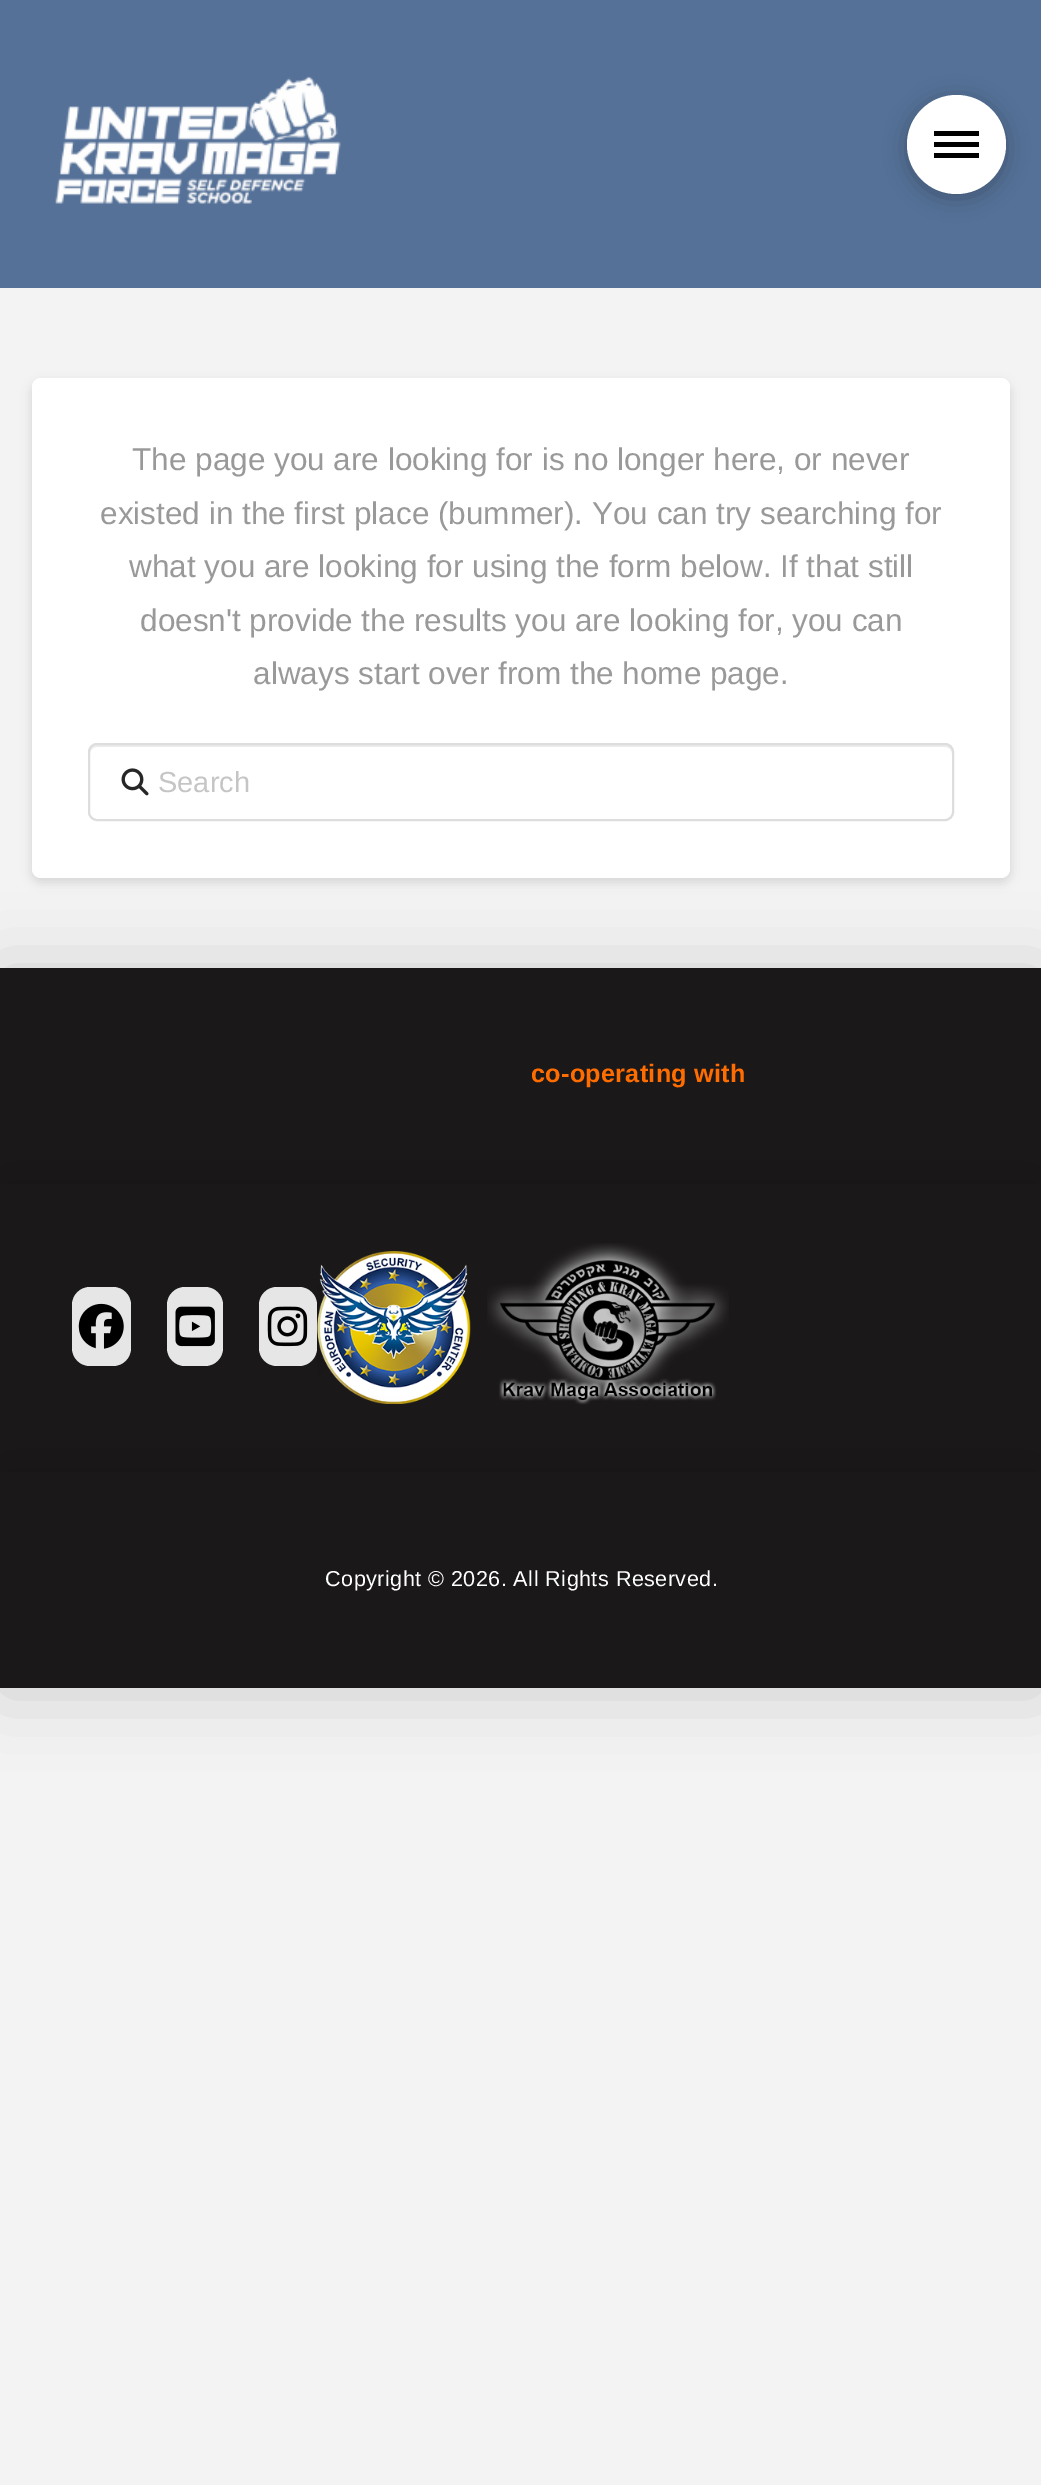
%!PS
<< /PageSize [1041 2485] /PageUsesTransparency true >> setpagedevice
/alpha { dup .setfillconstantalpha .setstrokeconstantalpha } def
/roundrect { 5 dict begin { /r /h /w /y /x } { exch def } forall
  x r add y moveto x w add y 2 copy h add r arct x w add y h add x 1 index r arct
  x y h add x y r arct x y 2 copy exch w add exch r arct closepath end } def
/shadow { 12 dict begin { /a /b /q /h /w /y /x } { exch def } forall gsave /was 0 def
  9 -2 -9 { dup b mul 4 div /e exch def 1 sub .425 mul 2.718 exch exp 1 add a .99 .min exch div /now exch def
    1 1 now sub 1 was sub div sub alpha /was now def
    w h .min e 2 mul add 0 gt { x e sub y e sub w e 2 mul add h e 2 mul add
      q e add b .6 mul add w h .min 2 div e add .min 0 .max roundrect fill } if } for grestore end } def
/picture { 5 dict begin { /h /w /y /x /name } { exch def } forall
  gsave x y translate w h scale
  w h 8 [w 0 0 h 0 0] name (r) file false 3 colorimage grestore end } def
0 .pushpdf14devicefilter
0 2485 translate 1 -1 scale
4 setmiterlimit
0.953 setgray
0 0 1041 2485 rectfill
0.333 0.443 0.596 setrgbcolor
0 0 1041 288 rectfill
(img1.rgb) 55 76 286 128 picture
0 setgray
907 99 99 99 49.5 11.5 0.25 shadow
1 setgray
newpath 956.5 144.5 49.5 0 360 arc closepath fill
0 setgray
934 131 45 5 rectfill
934 142 45 5 rectfill
934 153 45 5 rectfill
32 383 978 499 9 5.5 0.13 shadow
1 setgray
32 378 978 500 9 roundrect fill
/LiberationSans-Regular [31.5 0 0 -31.5 0 0] selectfont
0.6 setgray
132 470 moveto (The page you are looking for is no longer here, or never) show
100 524 moveto (existed in the first place \(bummer\). You can try searching for) show
129 577 moveto (what you are looking for using the form below. If that still) show
140 631 moveto (doesn't provide the results you are looking for, you can) show
253 684 moveto (always start over from the home page.) show
0.925 setgray
newpath 97 747 moveto 945 747 lineto 949 747 952 750 952 754 curveto 952 752 lineto 952 748 949 745 945 745 curveto 97 745 lineto 93 745 90 748 90 752 curveto 90 754 lineto 90 750 93 747 97 747 curveto closepath fill
0.867 setgray
2 setlinewidth
89 744 864 76 8 roundrect stroke
(img2.rgb) 121 768 28 28 picture
/LiberationSans-Regular [29 0 0 -29 0 0] selectfont
0.773 setgray
158 792 moveto (Search) show
0 setgray
0 972 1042 216 0 36 0.15 shadow
0.102 0.094 0.098 setrgbcolor
0 968 1041 216 rectfill
/LiberationSans-Bold [25.25 0 0 -25.25 0 0] selectfont
1 0.424 0 setrgbcolor
531 1082 moveto 0.25 0 (co-operating with) ashow
0 setgray
0 1188 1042 288 0 36 0.15 shadow
0.102 0.094 0.098 setrgbcolor
0 1184 1041 288 rectfill
0.89 alpha
1 setgray
72 1287 59 79 18 roundrect fill
1 alpha
(img3.rgb) 78 1303 46 46 picture
0.89 alpha
167 1287 56 79 18 roundrect fill
1 alpha
(img4.rgb) 175 1306 40 41 picture
0.902 setgray
259 1287 58 79 18 roundrect fill
(img5.rgb) 267 1306 41 41 picture
(img6.rgb) 317 1251 154 153 picture
(img7.rgb) 487 1243 242 162 picture
0 setgray
0 1476 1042 216 0 36 0.15 shadow
0.102 0.094 0.098 setrgbcolor
0 1472 1041 216 rectfill
/LiberationSans-Regular [21.6 0 0 -21.6 0 0] selectfont
1 setgray
325 1586 moveto 0.45 0 (Copyright © 2026. All Rights Reserved.) ashow
.poppdf14devicefilter showpage
